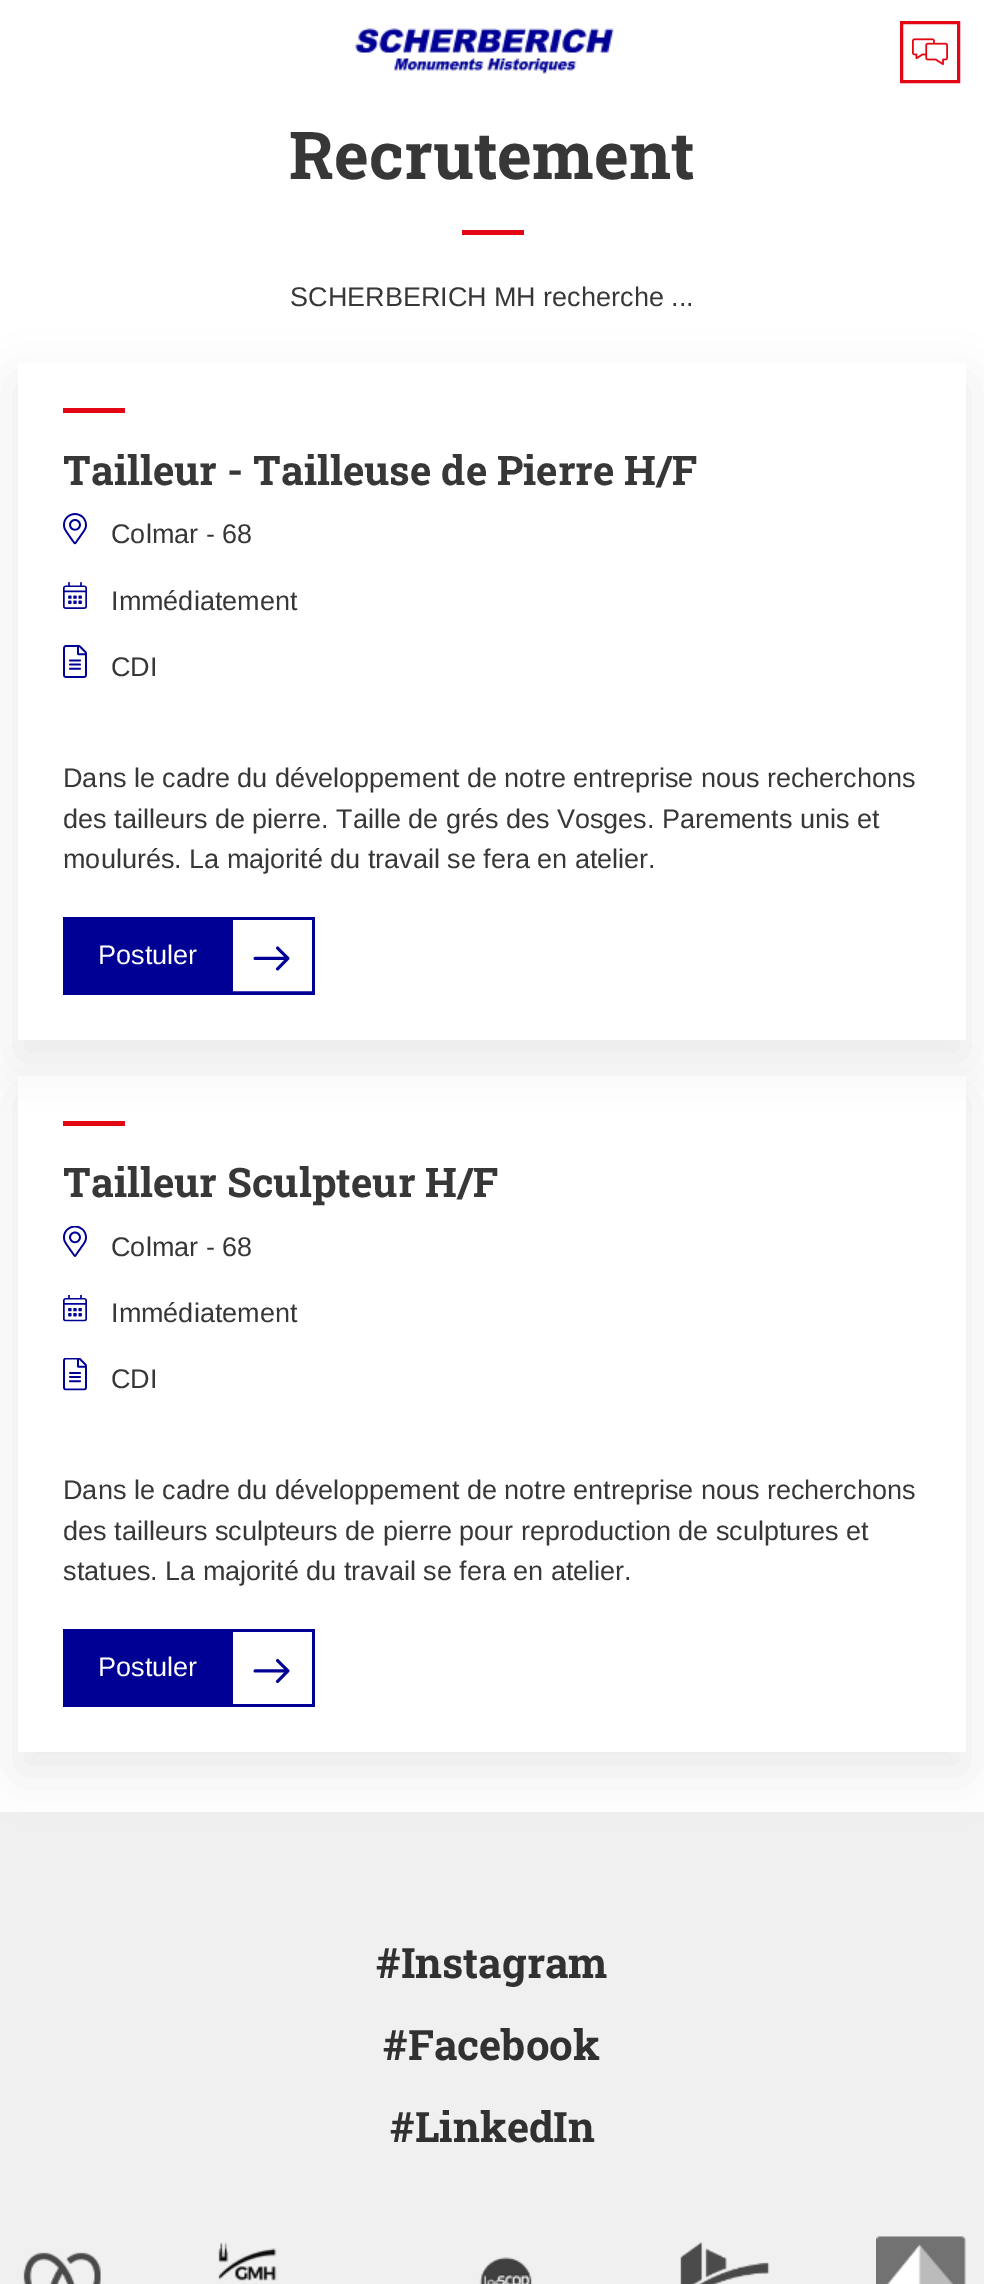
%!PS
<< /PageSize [984 2284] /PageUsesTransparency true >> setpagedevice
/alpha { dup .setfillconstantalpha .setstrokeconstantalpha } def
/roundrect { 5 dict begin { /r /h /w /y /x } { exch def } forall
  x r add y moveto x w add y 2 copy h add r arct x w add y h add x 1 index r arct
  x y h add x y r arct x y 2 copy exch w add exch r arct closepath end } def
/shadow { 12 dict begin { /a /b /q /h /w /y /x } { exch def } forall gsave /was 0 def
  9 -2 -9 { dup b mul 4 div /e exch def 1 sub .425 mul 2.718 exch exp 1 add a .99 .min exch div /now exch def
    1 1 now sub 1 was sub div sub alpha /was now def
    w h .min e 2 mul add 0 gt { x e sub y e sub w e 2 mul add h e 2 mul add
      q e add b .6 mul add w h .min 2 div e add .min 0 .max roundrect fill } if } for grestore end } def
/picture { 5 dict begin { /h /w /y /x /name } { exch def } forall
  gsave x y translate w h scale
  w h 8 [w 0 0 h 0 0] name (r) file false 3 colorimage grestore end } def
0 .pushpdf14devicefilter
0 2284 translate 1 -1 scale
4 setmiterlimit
1 setgray
0 0 984 2284 rectfill
(img1.rgb) 355 28 259 46 picture
0.89 0.024 0.075 setrgbcolor
3 setlinewidth
901.5 22.5 57 59 rectstroke
(img2.rgb) 912 38 36 27 picture
/RobotoSlab-Bold [66 0 0 -66 0 0] selectfont
0.216 setgray
289 179 moveto (Recrutement) show
0.89 0.024 0.075 setrgbcolor
462 230 62 5 rectfill
/LiberationSans-Regular [27 0 0 -27 0 0] selectfont
0.216 setgray
290 306 moveto (SCHERBERICH MH recherche ...) show
gsave
newpath 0 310 moveto 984 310 lineto 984 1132 lineto 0 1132 lineto closepath 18 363 moveto 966 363 lineto 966 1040 lineto 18 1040 lineto closepath eoclip newpath
0 setgray
18 383 948 676 0 24 0.08 shadow
grestore
0.89 0.024 0.075 setrgbcolor
63 408 62 5 rectfill
/RobotoSlab-Bold [40.7 0 0 -40.7 0 0] selectfont
0.216 setgray
63 485 moveto (Tailleur - Tailleuse de Pierre H/F) show
(img3.rgb) 63 513 24 32 picture
/LiberationSans-Regular [27 0 0 -27 0 0] selectfont
111 543 moveto (Colmar - 68) show
(img4.rgb) 63 582 24 27 picture
111 610 moveto (Immédiatement) show
(img5.rgb) 63 645 24 33 picture
111 676 moveto (CDI) show
63 787 moveto (Dans le cadre du développement de notre entreprise nous recherchons) show
63 828 moveto (des tailleurs de pierre. Taille de grés des Vosges. Parements unis et) show
63 868 moveto (moulurés. La majorité du travail se fera en atelier.) show
0 0 0.584 setrgbcolor
63 917 252 78 rectfill
1 setgray
98 964 moveto (Postuler) show
(img6.rgb) 233 920 79 72 picture
0.941 setgray
0 1812 984 472 rectfill
gsave
newpath 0 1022 moveto 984 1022 lineto 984 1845 lineto 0 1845 lineto closepath 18 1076 moveto 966 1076 lineto 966 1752 lineto 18 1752 lineto closepath eoclip newpath
0 setgray
18 1095 948 677 0 24 0.08 shadow
grestore
0.89 0.024 0.075 setrgbcolor
63 1121 62 5 rectfill
/RobotoSlab-Bold [40.7 0 0 -40.7 0 0] selectfont
0.216 setgray
63 1197 moveto (Tailleur Sculpteur H/F) show
(img7.rgb) 63 1226 24 31 picture
/LiberationSans-Regular [27 0 0 -27 0 0] selectfont
111 1256 moveto (Colmar - 68) show
(img8.rgb) 63 1295 24 27 picture
111 1322 moveto (Immédiatement) show
(img9.rgb) 63 1358 24 33 picture
111 1388 moveto (CDI) show
63 1499 moveto (Dans le cadre du développement de notre entreprise nous recherchons) show
63 1540 moveto (des tailleurs sculpteurs de pierre pour reproduction de sculptures et) show
63 1580 moveto (statues. La majorité du travail se fera en atelier.) show
0 0 0.584 setrgbcolor
63 1629 252 78 rectfill
1 setgray
98 1676 moveto (Postuler) show
(img10.rgb) 233 1632 79 72 picture
/RobotoSlab-Bold [42 0 0 -42 0 0] selectfont
0.192 setgray
376 1978 moveto (#Instagram) show
383 2060 moveto (#Facebook) show
390 2142 moveto (#LinkedIn) show
(img11.rgb) 23 2252 78 32 picture
(img12.rgb) 218 2242 59 39 picture
(img13.rgb) 479 2257 53 27 picture
(img14.rgb) 680 2242 90 42 picture
(img15.rgb) 876 2236 90 48 picture
.poppdf14devicefilter showpage
